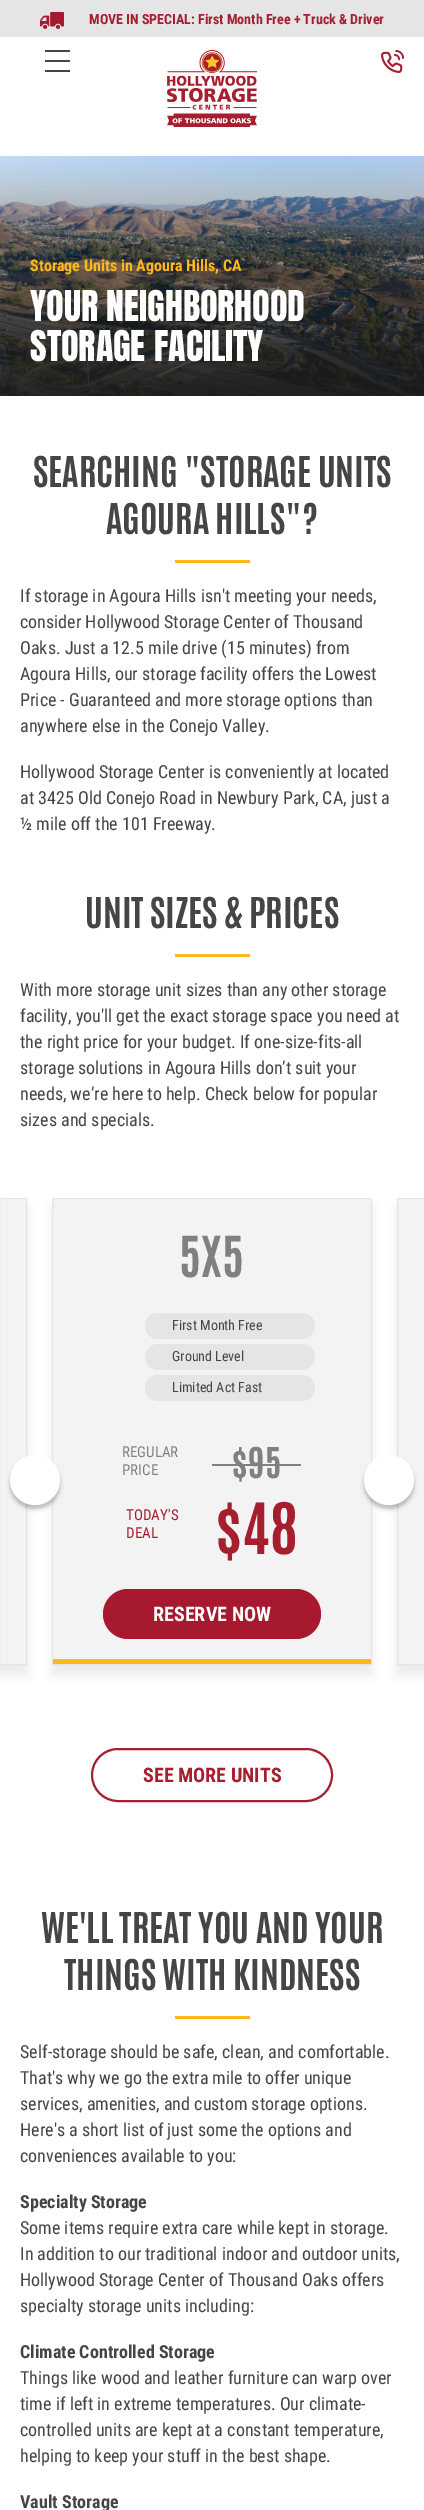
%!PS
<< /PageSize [424 2510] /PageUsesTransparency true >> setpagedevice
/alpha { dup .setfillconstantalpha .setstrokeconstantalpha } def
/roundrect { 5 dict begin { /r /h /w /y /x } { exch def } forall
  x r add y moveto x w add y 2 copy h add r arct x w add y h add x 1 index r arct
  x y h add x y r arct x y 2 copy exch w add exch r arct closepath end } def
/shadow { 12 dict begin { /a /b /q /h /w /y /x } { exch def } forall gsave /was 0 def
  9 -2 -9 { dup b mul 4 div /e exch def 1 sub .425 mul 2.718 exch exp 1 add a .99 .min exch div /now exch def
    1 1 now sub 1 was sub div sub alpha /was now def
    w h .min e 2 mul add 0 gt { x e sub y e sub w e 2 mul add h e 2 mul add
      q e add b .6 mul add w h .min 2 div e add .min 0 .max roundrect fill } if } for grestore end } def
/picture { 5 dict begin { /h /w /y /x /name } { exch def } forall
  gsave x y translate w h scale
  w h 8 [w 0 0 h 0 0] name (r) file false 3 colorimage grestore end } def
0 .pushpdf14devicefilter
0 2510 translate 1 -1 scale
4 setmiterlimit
1 setgray
0 0 424 2510 rectfill
0.898 setgray
0 0 424 37 rectfill
(img1.rgb) 40 12 24 17 picture
/RobotoCondensed-Bold [14 0 0 -14 0 0] selectfont
0.651 0.118 0.184 setrgbcolor
89 24 moveto (MOVE IN SPECIAL: First Month Free + Truck & Driver) show
0.271 setgray
45 50 25 2 rectfill
45 60 25 2 rectfill
45 70 25 2 rectfill
(img2.rgb) 167 50 90 77 picture
(img3.rgb) 381 50 23 23 picture
(img4.rgb) 0 156 424 240 picture
/RobotoCondensed-Bold [16 0 0 -16 0 0] selectfont
1 0.722 0.11 setrgbcolor
30 271 moveto (Storage Units in Agoura Hills, CA) show
/Anton-Regular [36 0 0 -36 0 0] selectfont
1 setgray
30 321 moveto (YOUR NEIGHBORHOOD) show
30 361 moveto (STORAGE FACILITY) show
/Antonio-Bold [36 0 0 -36 0 0] selectfont
0.271 setgray
33 487 moveto (SEARCHING "STORAGE UNITS) show
106 534 moveto (AGOURA HILLS"?) show
1 0.722 0.11 setrgbcolor
175 560 75 3 rectfill
/RobotoCondensed-Regular [18 0 0 -18 0 0] selectfont
0.271 setgray
20 602 moveto (If storage in Agoura Hills isn't meeting your needs,) show
20 628 moveto (consider Hollywood Storage Center of Thousand) show
20 654 moveto (Oaks. Just a 12.5 mile drive \(15 minutes\) from) show
20 680 moveto (Agoura Hills, our storage facility offers the Lowest) show
20 706 moveto (Price - Guaranteed and more storage options than) show
20 732 moveto (anywhere else in the Conejo Valley.) show
20 778 moveto (Hollywood Storage Center is conveniently at located) show
20 804 moveto (at 3425 Old Conejo Road in Newbury Park, CA, just a) show
20 830 moveto (½ mile off the 101 Freeway.) show
/Antonio-Bold [36 0 0 -36 0 0] selectfont
85 928 moveto (UNIT SIZES & PRICES) show
1 0.722 0.11 setrgbcolor
175 954 75 3 rectfill
/RobotoCondensed-Regular [18 0 0 -18 0 0] selectfont
0.271 setgray
20 996 moveto (With more storage unit sizes than any other storage) show
20 1022 moveto (facility, you'll get the exact storage space you need at) show
20 1048 moveto (the right price for your budget. If one-size-fits-all) show
20 1074 moveto (storage solutions in Agoura Hills don’t suit your) show
20 1100 moveto (needs, we’re here to help. Check below for popular) show
20 1126 moveto (sizes and specials.) show
0.835 0.831 0.831 setrgbcolor
-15 1208 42 467 0 5 0.5 shadow
0.953 setgray
newpath -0.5 1198.5 moveto 26.5 1198.5 lineto 26.5 1664.5 lineto -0.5 1664.5 lineto closepath gsave fill grestore
0.898 setgray
stroke
0.835 0.831 0.831 setrgbcolor
52 1208 320 467 0 5 0.5 shadow
0.953 setgray
53 1199 318 460 rectfill
0.898 setgray
52.5 1198.5 319 466 rectstroke
0 setgray
10 1459 50 50 25 2 0.25 shadow
1 setgray
newpath 35 1480 25 0 360 arc closepath fill
/Antonio-Bold [48 0 0 -48 0 0] selectfont
0.502 setgray
179 1277 moveto (5X5) show
0.898 setgray
145 1313 170 26 13 roundrect fill
/RobotoCondensed-Regular [14 0 0 -14 0 0] selectfont
0.271 setgray
172 1330 moveto (First Month Free) show
0.898 setgray
145 1344 170 26 13 roundrect fill
0.271 setgray
172 1361 moveto (Ground Level) show
0.898 setgray
145 1375 170 26 13 roundrect fill
0.271 setgray
172 1392 moveto (Limited Act Fast) show
/RobotoCondensed-Regular [15 0 0 -15 0 0] selectfont
0.502 setgray
122 1457 moveto (REGULAR) show
122 1475 moveto (PRICE) show
/Antonio-Bold [36 0 0 -36 0 0] selectfont
232 1478 moveto ($95) show
212 1464 89 2 rectfill
/RobotoCondensed-Regular [15 0 0 -15 0 0] selectfont
0.651 0.118 0.184 setrgbcolor
126 1520 moveto (TODAY'S) show
126 1538 moveto (DEAL) show
/Antonio-Bold [60 0 0 -60 0 0] selectfont
216 1554 moveto ($48) show
0.651 0.098 0.18 setrgbcolor
103 1589 218 50 25 roundrect fill
/RobotoCondensed-Bold [20 0 0 -20 0 0] selectfont
1 setgray
153 1621 moveto (RESERVE NOW) show
1 0.722 0.11 setrgbcolor
53 1659 318 5 rectfill
0.835 0.831 0.831 setrgbcolor
397 1208 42 467 0 5 0.5 shadow
0.953 setgray
newpath 397.5 1198.5 moveto 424.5 1198.5 lineto 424.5 1664.5 lineto 397.5 1664.5 lineto closepath gsave fill grestore
0.898 setgray
stroke
0 setgray
364 1459 50 50 25 2 0.25 shadow
1 setgray
newpath 389 1480 25 0 360 arc closepath fill
0.651 0.118 0.184 setrgbcolor
2 setlinewidth
92 1749 240 52 26 roundrect stroke
143 1782 moveto (SEE MORE UNITS) show
/Antonio-Bold [36 0 0 -36 0 0] selectfont
0.271 setgray
41 1943 moveto (WE'LL TREAT YOU AND YOUR) show
64 1990 moveto (THINGS WITH KINDNESS) show
1 0.722 0.11 setrgbcolor
175 2016 75 3 rectfill
/RobotoCondensed-Regular [18 0 0 -18 0 0] selectfont
0.271 setgray
20 2058 moveto (Self-storage should be safe, clean, and comfortable.) show
20 2084 moveto (That's why we go the extra mile to offer unique) show
20 2110 moveto (services, amenities, and custom storage options.) show
20 2136 moveto (Here's a short list of just some the options and) show
20 2162 moveto (conveniences available to you:) show
/RobotoCondensed-Bold [18 0 0 -18 0 0] selectfont
20 2208 moveto (Specialty Storage) show
/RobotoCondensed-Regular [18 0 0 -18 0 0] selectfont
20 2234 moveto (Some items require extra care while kept in storage.) show
20 2260 moveto (In addition to our traditional indoor and outdoor units,) show
20 2286 moveto (Hollywood Storage Center of Thousand Oaks offers) show
20 2312 moveto (specialty storage units including:) show
/RobotoCondensed-Bold [18 0 0 -18 0 0] selectfont
20 2358 moveto (Climate Controlled Storage) show
/RobotoCondensed-Regular [18 0 0 -18 0 0] selectfont
20 2384 moveto (Things like wood and leather furniture can warp over) show
20 2410 moveto (time if left in extreme temperatures. Our climate-) show
20 2436 moveto (controlled units are kept at a constant temperature,) show
20 2462 moveto (helping to keep your stuff in the best shape.) show
/RobotoCondensed-Bold [18 0 0 -18 0 0] selectfont
20 2508 moveto (Vault Storage) show
.poppdf14devicefilter showpage
